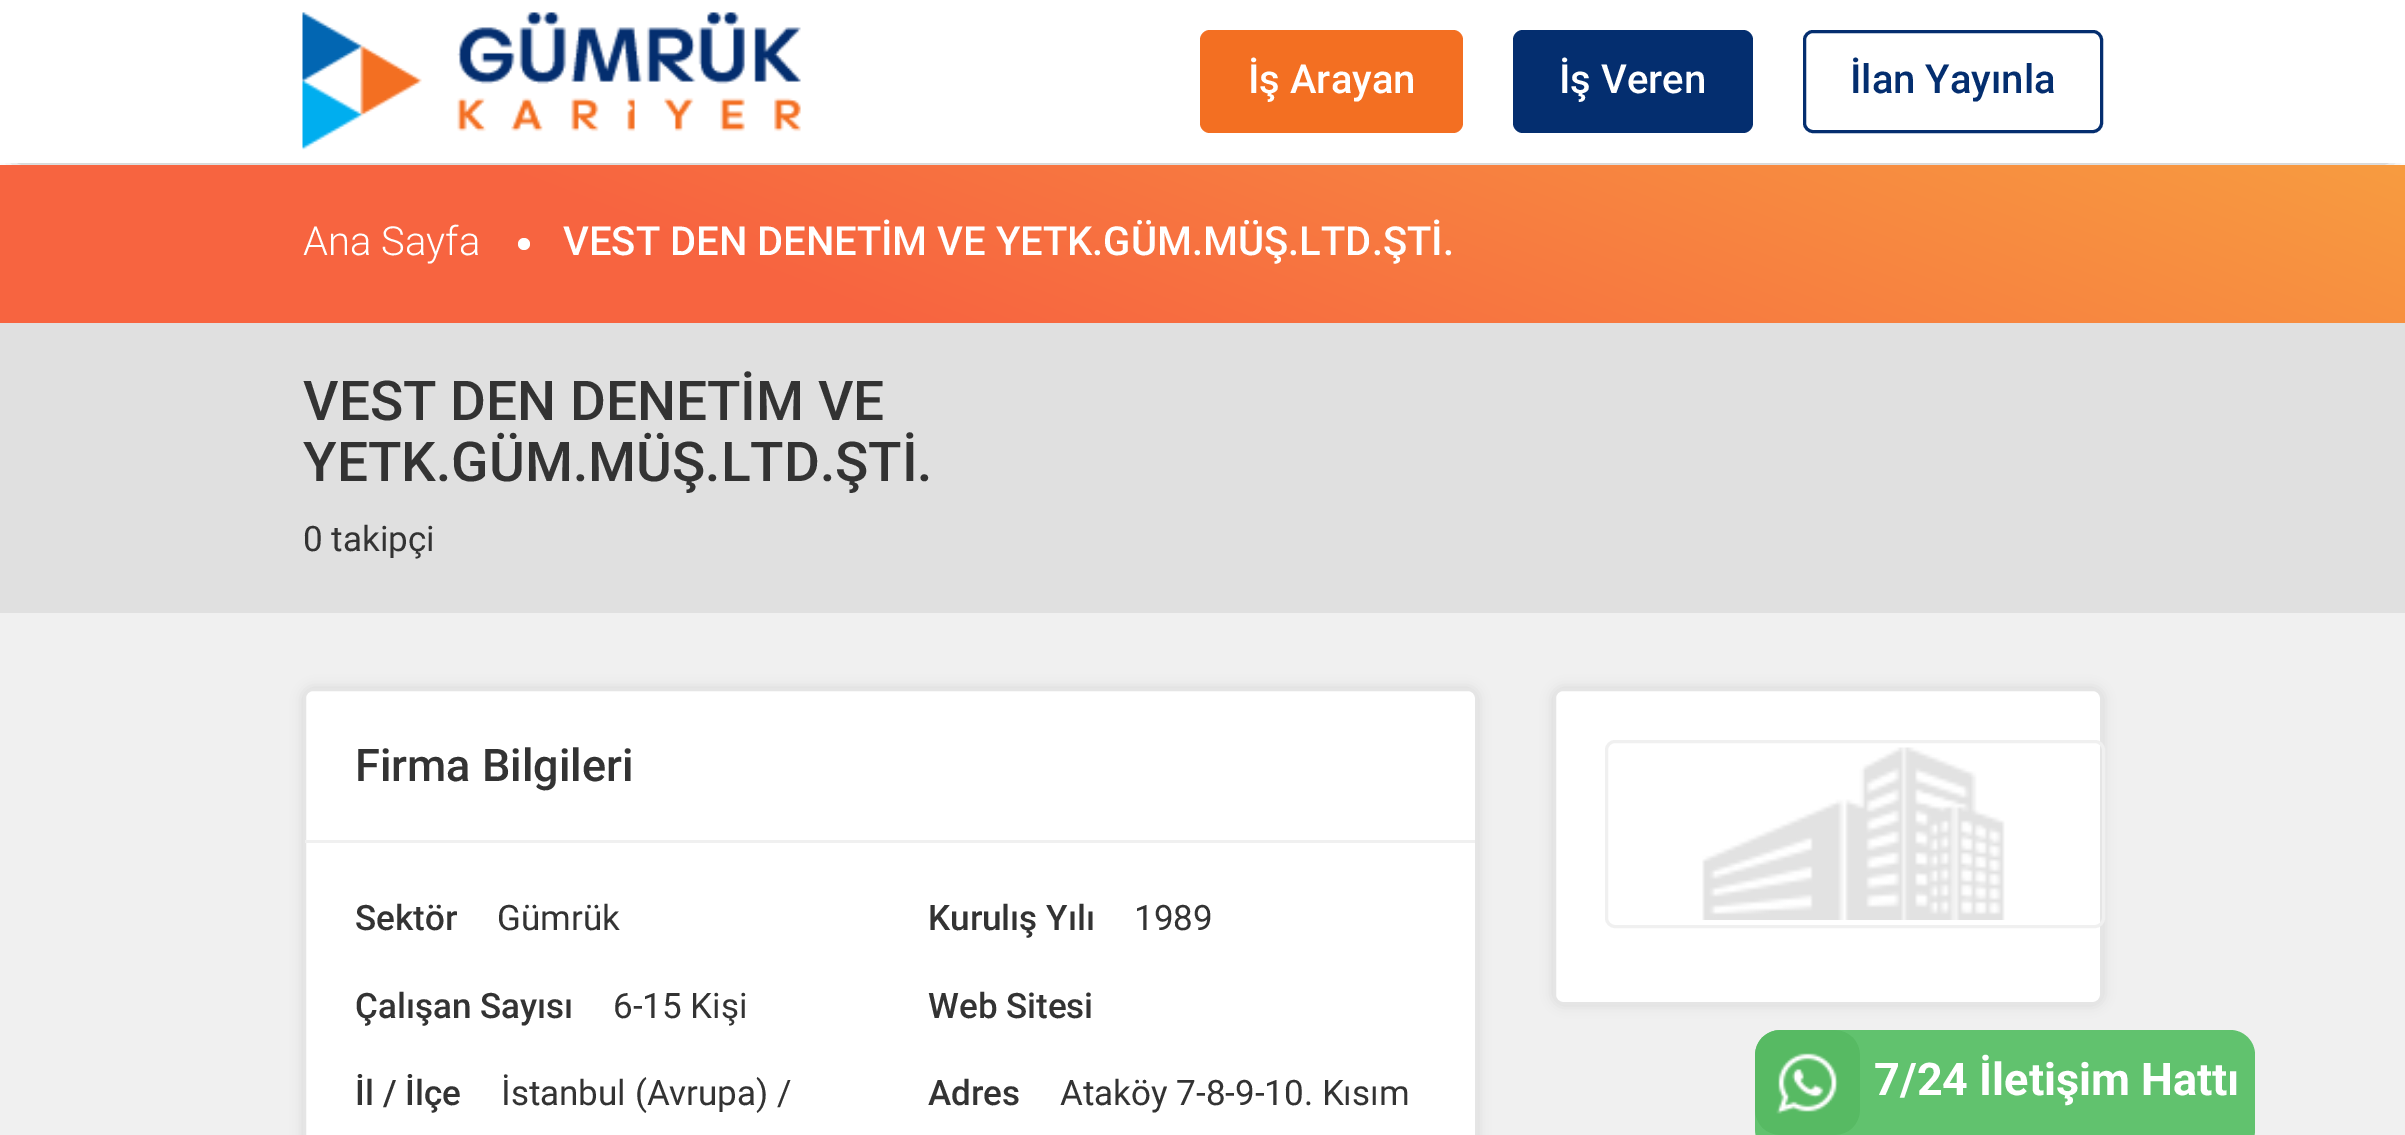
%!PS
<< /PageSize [2405 1135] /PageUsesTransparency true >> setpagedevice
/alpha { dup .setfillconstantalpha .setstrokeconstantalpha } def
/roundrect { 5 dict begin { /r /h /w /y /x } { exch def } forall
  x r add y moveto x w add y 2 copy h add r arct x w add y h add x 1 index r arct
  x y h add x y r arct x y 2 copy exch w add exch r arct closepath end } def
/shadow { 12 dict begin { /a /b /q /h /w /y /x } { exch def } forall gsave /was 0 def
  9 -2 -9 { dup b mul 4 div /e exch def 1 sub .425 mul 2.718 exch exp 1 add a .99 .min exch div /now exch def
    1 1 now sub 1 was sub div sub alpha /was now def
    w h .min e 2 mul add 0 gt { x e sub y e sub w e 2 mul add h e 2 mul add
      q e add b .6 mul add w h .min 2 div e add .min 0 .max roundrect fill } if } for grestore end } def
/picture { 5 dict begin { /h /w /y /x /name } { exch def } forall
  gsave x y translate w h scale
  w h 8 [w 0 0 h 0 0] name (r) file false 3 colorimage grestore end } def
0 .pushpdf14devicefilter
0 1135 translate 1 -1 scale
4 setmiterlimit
1 setgray
0 0 2405 1135 rectfill
gsave
newpath 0 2 moveto 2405 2 lineto 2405 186 lineto 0 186 lineto closepath 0 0 moveto 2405 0 lineto 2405 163 lineto 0 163 lineto closepath eoclip newpath
0 setgray
18 30 2370 128 0 9 0.5 shadow
grestore
(img1.rgb) 302 12 499 138 picture
0.953 0.435 0.133 setrgbcolor
1200 30 263 103 10 roundrect fill
/Roboto-Medium [40 0 0 -40 0 0] selectfont
1 setgray
1248 93 moveto (İş Arayan) show
0.016 0.18 0.435 setrgbcolor
1513 30 240 103 10 roundrect fill
1 setgray
1559 93 moveto (İş Veren) show
0.016 0.18 0.435 setrgbcolor
3 setlinewidth
1804.5 31.5 297 100 8.5 roundrect stroke
1850 93 moveto (İlan Yayınla) show
gsave newpath 0 165 moveto 2405 165 lineto 2405 323 lineto 0 323 lineto closepath clip newpath
<< /ShadingType 2 /ColorSpace /DeviceRGB /Coords [1022 715 1383 -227] /Extend [true true] /Function << /FunctionType 3 /Domain [0 1] /Functions [<< /FunctionType 2 /Domain [0 1] /C0 [0.969 0.392 0.251] /C1 [0.969 0.392 0.251] /N 1 >> << /FunctionType 2 /Domain [0 1] /C0 [0.969 0.392 0.251] /C1 [0.969 0.612 0.251] /N 1 >>] /Bounds [0.31] /Encode [0 1 0 1] >> >> shfill grestore
/Roboto-Light [40 0 0 -40 0 0] selectfont
1 setgray
303 255 moveto (Ana Sayfa) show
newpath 524 244 6 0 360 arc closepath fill
/Roboto-Medium [40 0 0 -40 0 0] selectfont
563 255 moveto (VEST DEN DENETİM VE YETK.GÜM.MÜŞ.LTD.ŞTİ.) show
0.878 setgray
0 323 2405 290 rectfill
/Roboto-Medium [55 0 0 -55 0 0] selectfont
0.2 setgray
303 420 moveto (VEST DEN DENETİM VE) show
303 481 moveto (YETK.GÜM.MÜŞ.LTD.ŞTİ.) show
/Roboto-Regular [35 0 0 -35 0 0] selectfont
303 551 moveto (0 takipçi) show
0.941 setgray
0 613 2405 522 rectfill
0 setgray
303 688 1175 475 10 6 0.1 shadow
1 setgray
304.5 689.5 1172 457 8.5 roundrect gsave fill grestore
0.898 setgray
stroke
0.941 setgray
305 840 1170 3 rectfill
/Roboto-Medium [45 0 0 -45 0 0] selectfont
0.2 setgray
355 781 moveto (Firma Bilgileri) show
/Roboto-Medium [35 0 0 -35 0 0] selectfont
355 930 moveto (Sektör) show
/Roboto-Regular [35 0 0 -35 0 0] selectfont
497 930 moveto (Gümrük) show
/Roboto-Medium [35 0 0 -35 0 0] selectfont
928 930 moveto (Kurulış Yılı) show
/Roboto-Regular [35 0 0 -35 0 0] selectfont
1134 930 moveto (1989) show
/Roboto-Medium [35 0 0 -35 0 0] selectfont
355 1018 moveto (Çalışan Sayısı) show
/Roboto-Regular [35 0 0 -35 0 0] selectfont
613 1018 moveto (6-15 Kişi) show
/Roboto-Medium [35 0 0 -35 0 0] selectfont
928 1018 moveto (Web Sitesi) show
355 1105 moveto (İl / İlçe) show
/Roboto-Regular [35 0 0 -35 0 0] selectfont
501 1105 moveto (İstanbul \(Avrupa\) /) show
/Roboto-Medium [35 0 0 -35 0 0] selectfont
928 1105 moveto (Adres) show
/Roboto-Regular [35 0 0 -35 0 0] selectfont
1060 1105 moveto (Ataköy 7-8-9-10. Kısım) show
0 setgray
1553 688 550 317 10 6 0.1 shadow
1 setgray
1554.5 689.5 547 314 8.5 roundrect gsave fill grestore
0.898 setgray
stroke
0.941 setgray
1606.5 741.5 497 185 8.5 roundrect stroke
(img2.rgb) 1702 747 303 173 picture
0.38 0.761 0.431 setrgbcolor
1755 1030 500 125 25 roundrect fill
(img3.rgb) 1755 1030 105 105 picture
/Roboto-Bold [45 0 0 -45 0 0] selectfont
1 setgray
1874 1095 moveto (7/24 İletişim Hattı) show
.poppdf14devicefilter showpage
